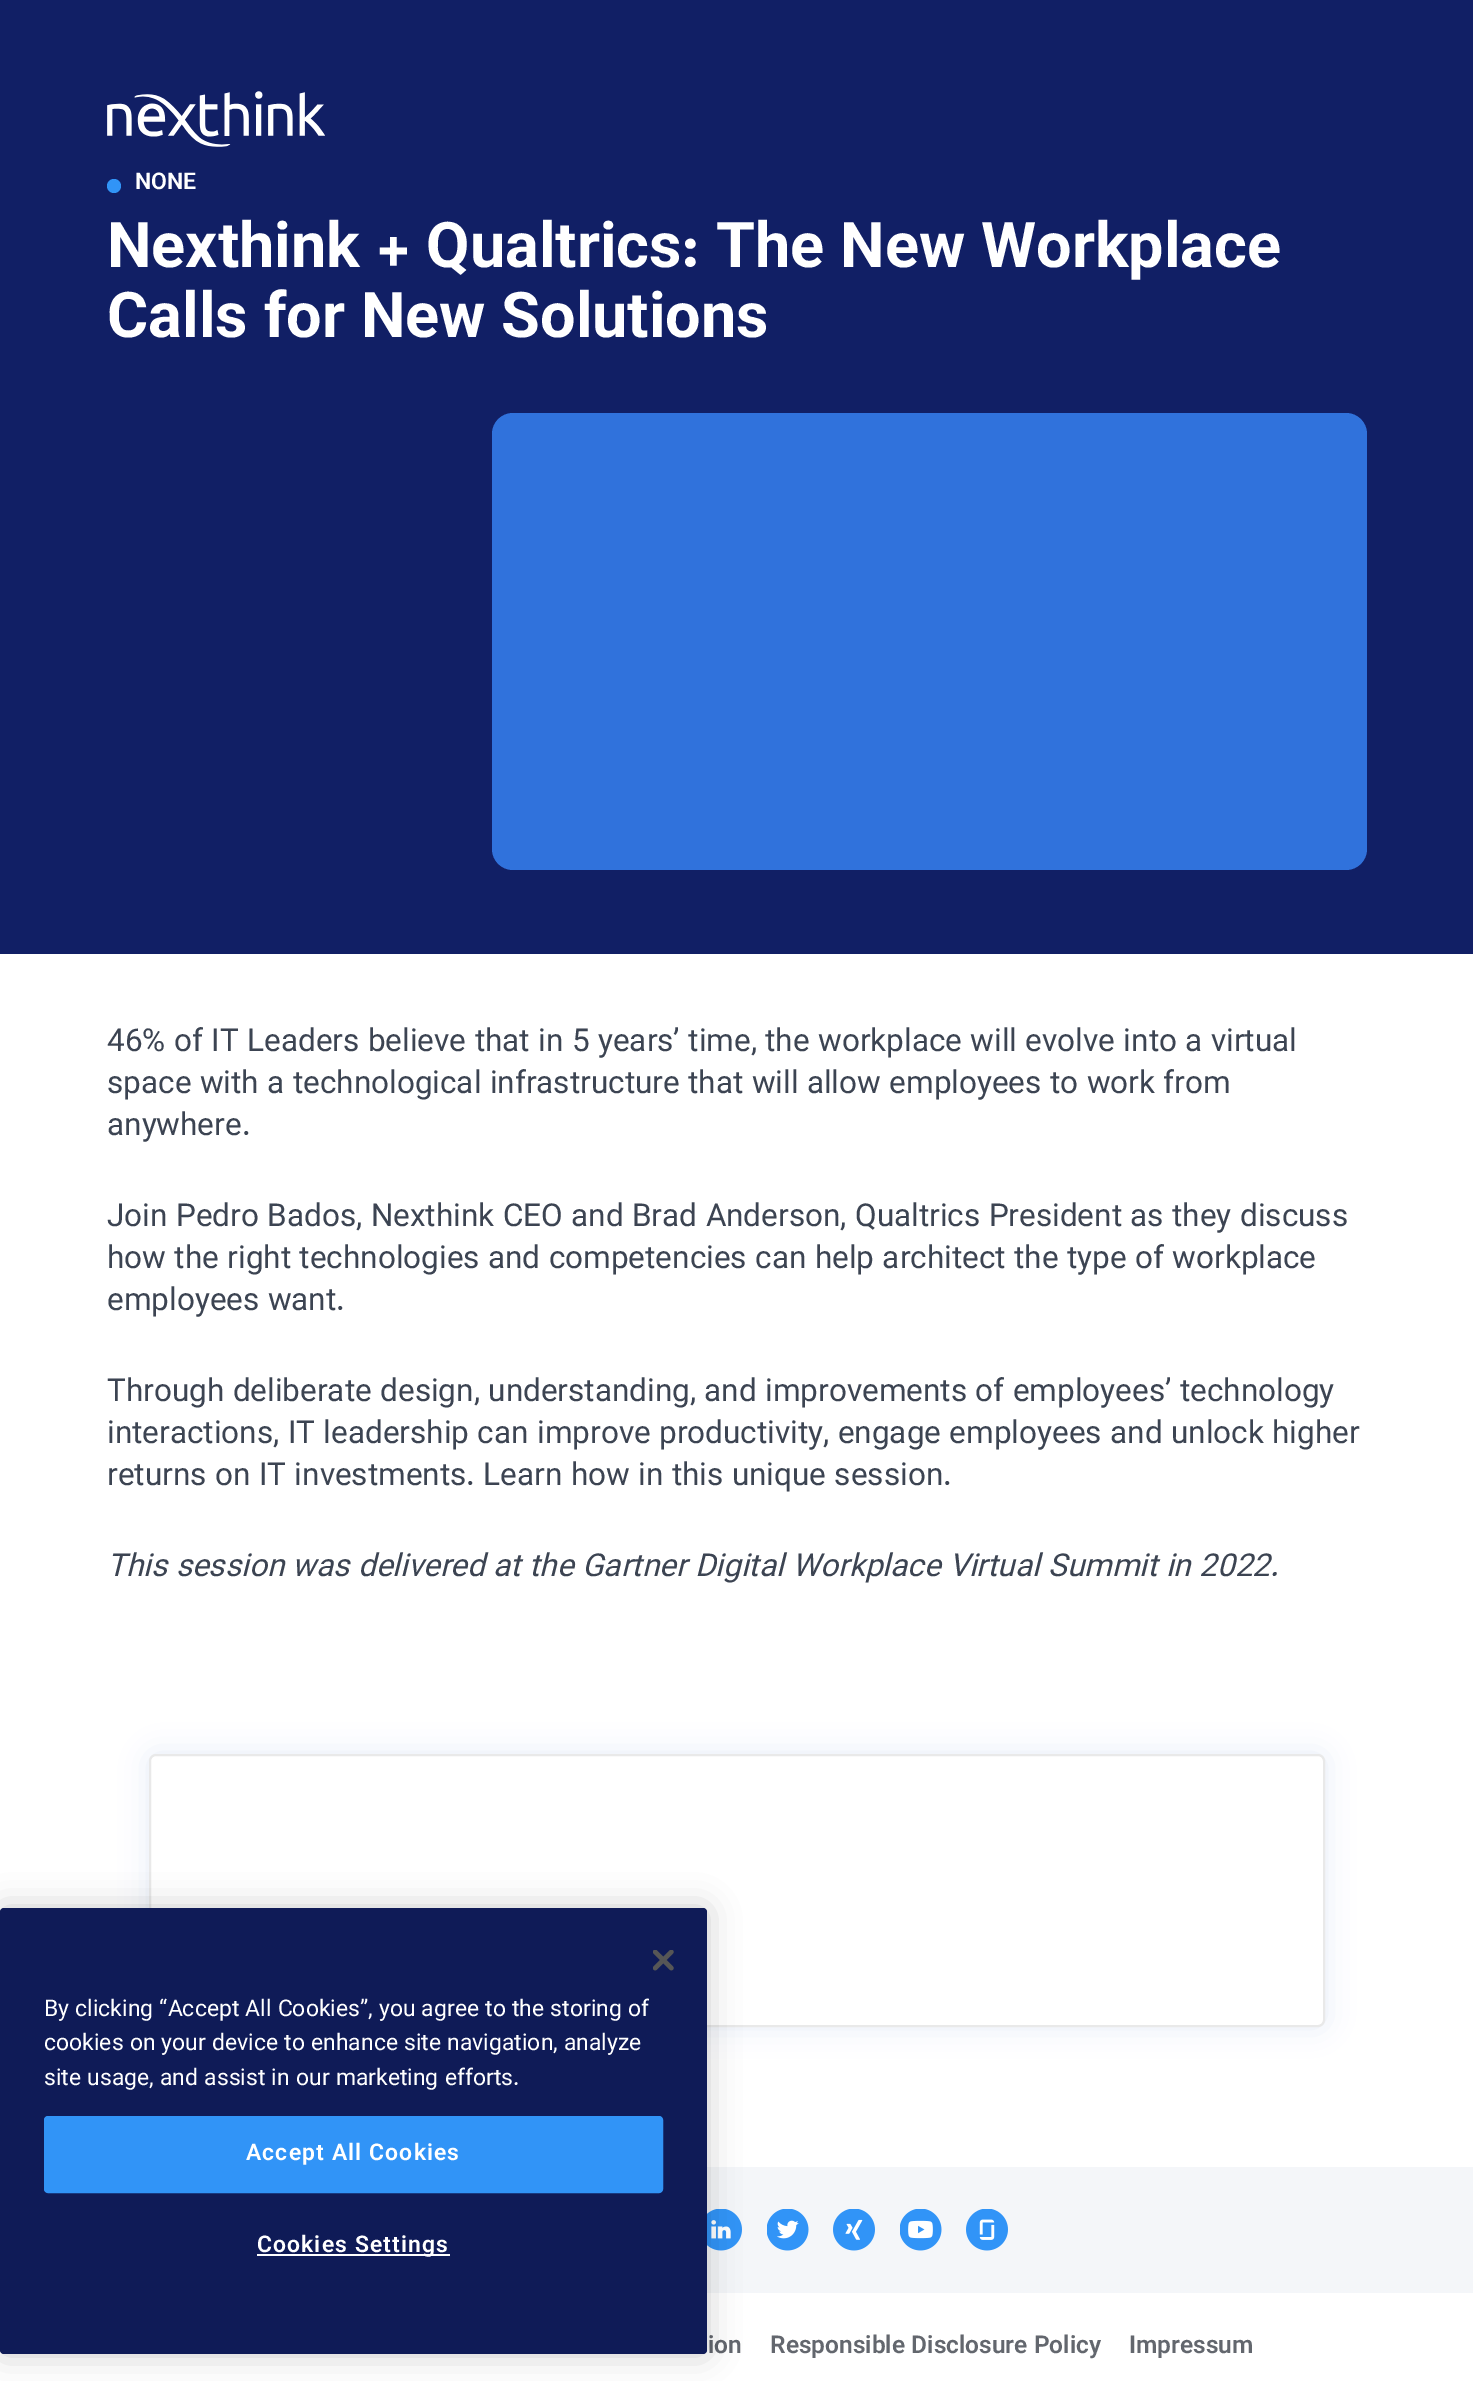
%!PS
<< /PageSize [1473 2381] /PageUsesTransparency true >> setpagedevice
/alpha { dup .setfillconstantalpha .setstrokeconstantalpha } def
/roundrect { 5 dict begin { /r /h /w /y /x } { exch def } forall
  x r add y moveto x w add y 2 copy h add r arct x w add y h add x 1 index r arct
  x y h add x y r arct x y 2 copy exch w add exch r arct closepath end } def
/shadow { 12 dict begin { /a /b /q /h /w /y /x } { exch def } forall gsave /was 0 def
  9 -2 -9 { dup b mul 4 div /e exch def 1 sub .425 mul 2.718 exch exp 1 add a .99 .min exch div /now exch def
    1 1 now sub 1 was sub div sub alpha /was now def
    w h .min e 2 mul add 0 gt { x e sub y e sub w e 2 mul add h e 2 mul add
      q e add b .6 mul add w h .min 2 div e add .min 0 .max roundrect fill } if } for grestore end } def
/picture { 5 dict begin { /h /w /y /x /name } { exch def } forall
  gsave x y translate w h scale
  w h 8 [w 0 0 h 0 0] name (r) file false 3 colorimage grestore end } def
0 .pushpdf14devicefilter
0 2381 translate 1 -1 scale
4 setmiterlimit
1 setgray
0 0 1473 2381 rectfill
0.067 0.122 0.396 setrgbcolor
0 0 1473 954 rectfill
(img1.rgb) 107 91 218 56 picture
0.192 0.58 0.969 setrgbcolor
newpath 114 186 7 0 360 arc closepath fill
/Vazirmatn-SemiBold [23 0 0 -23 0 0] selectfont
1 setgray
135 189 moveto (NONE) show
/Vazirmatn-Bold [63 0 0 -63 0 0] selectfont
107 267 moveto (Nexthink + Qualtrics: The New Workplace) show
107 337 moveto (Calls for New Solutions) show
0.188 0.447 0.863 setrgbcolor
492 413 875 457 21 roundrect fill
/Vazirmatn-Regular [31.5 0 0 -31.5 0 0] selectfont
0.235 0.267 0.322 setrgbcolor
107 1051 moveto (46% of IT Leaders believe that in 5 years’ time, the workplace will evolve into a virtual) show
107 1093 moveto (space with a technological infrastructure that will allow employees to work from) show
107 1135 moveto (anywhere.) show
107 1226 moveto (Join Pedro Bados, Nexthink CEO and Brad Anderson, Qualtrics President as they discuss) show
107 1268 moveto (how the right technologies and competencies can help architect the type of workplace) show
107 1310 moveto (employees want.) show
107 1401 moveto (Through deliberate design, understanding, and improvements of employees’ technology) show
107 1443 moveto (interactions, IT leadership can improve productivity, engage employees and unlock higher) show
107 1485 moveto (returns on IT investments. Learn how in this unique session.) show
/Vazirmatn-Italic [31.5 0 0 -31.5 0 0] selectfont
107 1576 moveto (This session was delivered at the Gartner Digital Workplace Virtual Summit in 2022.) show
0.063 0.275 0.659 setrgbcolor
149 1754 1176 273 7 14 0.1 shadow
1 setgray
150 1755 1174 271 6 roundrect gsave fill grestore
0.914 setgray
2 setlinewidth
stroke
0.957 0.965 0.976 setrgbcolor
707 2167 766 126 rectfill
(img2.rgb) 707 2209 35 42 picture
(img3.rgb) 767 2209 42 42 picture
(img4.rgb) 833 2209 42 42 picture
(img5.rgb) 900 2209 42 42 picture
(img6.rgb) 966 2209 42 42 picture
/Vazirmatn-SemiBold [24.5 0 0 -24.5 0 0] selectfont
0.388 0.404 0.431 setrgbcolor
708 2353 moveto (ion) show
770 2353 moveto (Responsible Disclosure Policy) show
1129 2353 moveto (Impressum) show
0 setgray
0 1908 707 446 4 16 0.2 shadow
0.059 0.106 0.341 setrgbcolor
0 1908 707 446 4 roundrect fill
(img7.rgb) 653 1950 21 21 picture
/Vazirmatn-Regular [22.95 0 0 -22.95 0 0] selectfont
1 setgray
44 2016 moveto (By clicking “Accept All Cookies”, you agree to the storing of) show
44 2050 moveto (cookies on your device to enhance site navigation, analyze) show
44 2085 moveto (site usage, and assist in our marketing efforts.) show
0.192 0.58 0.969 setrgbcolor
45 2117 617 75 3 roundrect gsave fill grestore
stroke
/Vazirmatn-SemiBold [22.95 0 0 -22.95 0 0] selectfont
1 setgray
246 2160 moveto 1.1 0 (Accept All Cookies) ashow
257 2254 193 2 rectfill
257 2252 moveto 1.1 0 (Cookies Settings) ashow
.poppdf14devicefilter showpage
